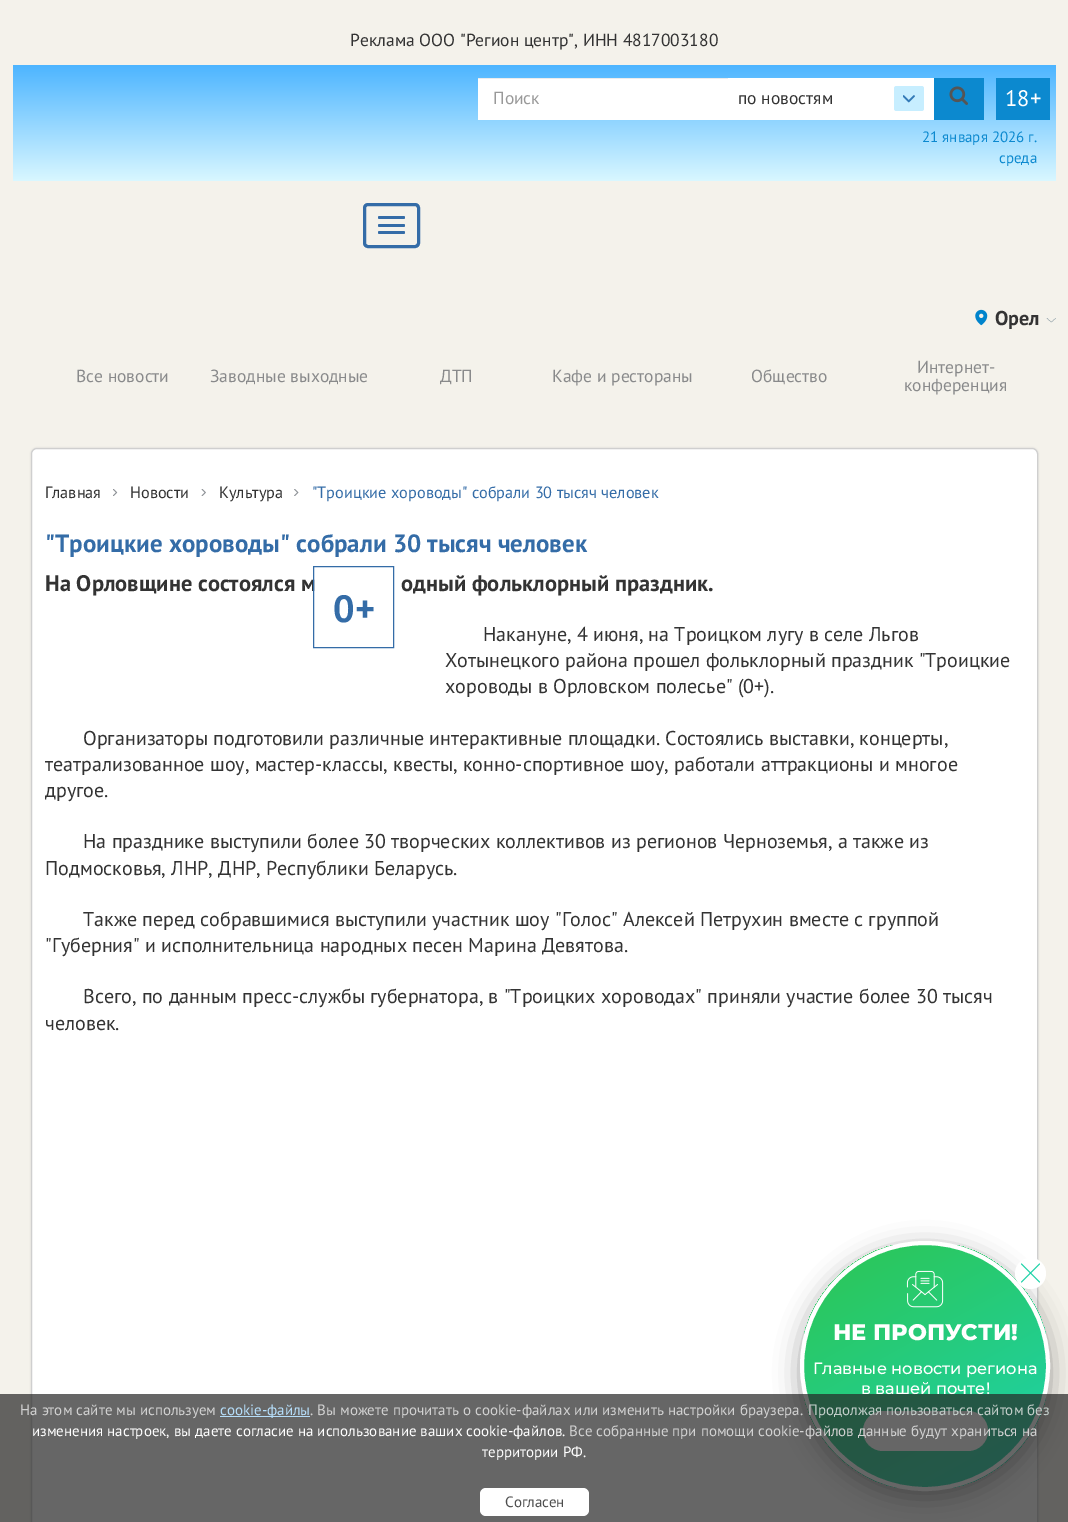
%!PS
<< /PageSize [1068 1522] /PageUsesTransparency true >> setpagedevice
/alpha { dup .setfillconstantalpha .setstrokeconstantalpha } def
/roundrect { 5 dict begin { /r /h /w /y /x } { exch def } forall
  x r add y moveto x w add y 2 copy h add r arct x w add y h add x 1 index r arct
  x y h add x y r arct x y 2 copy exch w add exch r arct closepath end } def
/shadow { 12 dict begin { /a /b /q /h /w /y /x } { exch def } forall gsave /was 0 def
  9 -2 -9 { dup b mul 4 div /e exch def 1 sub .425 mul 2.718 exch exp 1 add a .99 .min exch div /now exch def
    1 1 now sub 1 was sub div sub alpha /was now def
    w h .min e 2 mul add 0 gt { x e sub y e sub w e 2 mul add h e 2 mul add
      q e add b .6 mul add w h .min 2 div e add .min 0 .max roundrect fill } if } for grestore end } def
/picture { 5 dict begin { /h /w /y /x /name } { exch def } forall
  gsave x y translate w h scale
  w h 8 [w 0 0 h 0 0] name (r) file false 3 colorimage grestore end } def
0 .pushpdf14devicefilter
0 1522 translate 1 -1 scale
4 setmiterlimit
0.957 0.949 0.922 setrgbcolor
0 0 1068 1522 rectfill
/PTSans-Regular [17.5 0 0 -17.5 0 0] selectfont
0.2 setgray
350 46 moveto (Реклама ООО "Регион центр", ИНН 4817003180) show
gsave newpath 13 65 moveto 1056 65 lineto 1056 181 lineto 13 181 lineto closepath clip newpath
<< /ShadingType 2 /ColorSpace /DeviceRGB /Coords [534 65 534 181] /Extend [true true] /Function << /FunctionType 2 /Domain [0 1] /C0 [0.302 0.71 1] /C1 [0.851 0.969 1] /N 1 >> >> shfill grestore
1 setgray
478 79 250 41 rectfill
0.925 setgray
478 78 250 1 rectfill
0.6 setgray
493 104 moveto (Поиск) show
1 setgray
728 78 206 42 rectfill
0.2 setgray
738 104 moveto (по новостям) show
0.78 0.933 1 setrgbcolor
894 86 30 25 2.5 roundrect fill
(img1.rgb) 903 95 12 8 picture
0.047 0.537 0.812 setrgbcolor
934 78 50 42 rectfill
(img2.rgb) 949 86 19 19 picture
996 78 54 42 rectfill
/PTSans-Regular [22.5 0 0 -22.5 0 0] selectfont
1 setgray
1005 106 moveto (18+) show
/PTSans-Regular [15 0 0 -15 0 0] selectfont
0.047 0.537 0.812 setrgbcolor
922 142 moveto (21 января 2026 г.) show
999 163 moveto (среда) show
0.204 0.424 0.655 setrgbcolor
3 setlinewidth
364.5 204.5 54 42 3.5 roundrect stroke
378 216 27 3 1.5 roundrect fill
378 224 27 3 1.5 roundrect fill
378 231 27 3 1.5 roundrect fill
(img3.rgb) 975 309 13 17 picture
/PTSans-Bold [20 0 0 -20 0 0] selectfont
0.2 setgray
995 325 moveto (Орел) show
(img4.rgb) 1046 318 10 5 picture
/PTSans-Regular [17.5 0 0 -17.5 0 0] selectfont
0.537 0.541 0.545 setrgbcolor
76 382 moveto (Все новости) show
210 382 moveto (Заводные выходные) show
440 382 moveto (ДТП) show
552 382 moveto (Кафе и рестораны) show
751 382 moveto (Общество) show
917 373 moveto (Интернет-) show
904 391 moveto (конференция) show
0.812 setgray
31 448 1007 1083 6 1 1 shadow
1 setgray
31.5 448.5 1006 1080 5.5 roundrect gsave fill grestore
0.812 setgray
1 setlinewidth
stroke
/PTSans-Regular [16.25 0 0 -16.25 0 0] selectfont
0.2 setgray
45 498 moveto (Главная) show
(img5.rgb) 113 489 5 7 picture
130 498 moveto (Новости) show
(img6.rgb) 201 489 5 7 picture
219 498 moveto (Культура) show
(img7.rgb) 294 489 5 7 picture
0.204 0.424 0.655 setrgbcolor
312 498 moveto ("Троицкие хороводы" собрали 30 тысяч человек) show
/PTSans-Bold [25 0 0 -25 0 0] selectfont
45 552 moveto ("Троицкие хороводы" собрали 30 тысяч человек) show
/PTSans-Bold [22.5 0 0 -22.5 0 0] selectfont
0.2 setgray
45 591 moveto (На Орловщине состоялся м) show
401 591 moveto (одный фольклорный праздник.) show
0.7 alpha
1 setgray
314 579 1 12 rectfill
1 alpha
0.204 0.424 0.655 setrgbcolor
313.5 566.5 80 81 rectstroke
/PTSans-Bold [38 0 0 -38 0 0] selectfont
333 622 moveto (0+) show
/PTSans-Regular [20 0 0 -20 0 0] selectfont
0.2 setgray
483 641 moveto (Накануне, 4 июня, на Троицком лугу в селе Льгов) show
445 667 moveto (Хотынецкого района прошел фольклорный праздник "Троицкие) show
445 693 moveto (хороводы в Орловском полесье" \(0+\).) show
83 745 moveto (Организаторы подготовили различные интерактивные площадки. Состоялись выставки, концерты,) show
45 771 moveto (театрализованное шоу, мастер-классы, квесты, конно-спортивное шоу, работали аттракционы и многое) show
45 797 moveto (другое.) show
83 848 moveto (На празднике выступили более 30 творческих коллективов из регионов Черноземья, а также из) show
45 875 moveto (Подмосковья, ЛНР, ДНР, Республики Беларусь.) show
83 926 moveto (Также перед собравшимися выступили участник шоу "Голос" Алексей Петрухин вместе с группой) show
45 952 moveto ("Губерния" и исполнительница народных песен Марина Девятова.) show
83 1003 moveto (Всего, по данным пресс-службы губернатора, в "Троицких хороводах" приняли участие более 30 тысяч) show
45 1030 moveto (человек.) show
0 setgray
800 1248 250 250 125 12.5 0.35 shadow
gsave
800 1241 250 250 125 roundrect clip newpath
gsave newpath 804 1245 moveto 1046 1245 lineto 1046 1488 lineto 804 1488 lineto closepath clip newpath
<< /ShadingType 2 /ColorSpace /DeviceRGB /Coords [1005 1510 845 1222] /Extend [true true] /Function << /FunctionType 3 /Domain [0 1] /Functions [<< /FunctionType 2 /Domain [0 1] /C0 [0.114 0.827 0.69] /C1 [0.176 0.776 0.325] /N 1 >> << /FunctionType 2 /Domain [0 1] /C0 [0.176 0.776 0.325] /C1 [0.176 0.776 0.325] /N 1 >>] /Bounds [0.99] /Encode [0 1 0 1] >> >> shfill grestore
grestore
1 setgray
4 setlinewidth
newpath 925 1366 123 0 360 arc closepath stroke
newpath 1030.5 1273.5 15.5 0 360 arc closepath fill
0.118 0.824 0.659 setrgbcolor
0.9 setlinewidth
1 setlinecap
1 setlinejoin
newpath 1021.5 1282 moveto 1039.5 1264 lineto 1021.5 1264 moveto 1039.5 1282 lineto stroke
(img8.rgb) 906 1270 38 38 picture
/Montserrat-ExtraBold [22.5 0 0 -22.5 0 0] selectfont
1 setgray
833 1340 moveto (НЕ ПРОПУСТИ!) show
/Montserrat-Medium [16.25 0 0 -16.25 0 0] selectfont
813 1374 moveto (Главные новости региона) show
861 1394 moveto (в вашей почте!) show
863 1411 125 40 20 roundrect fill
0.7 alpha
0.145 setgray
0 1394 1068 128 rectfill
/PTSans-Regular [15 0 0 -15 0 0] selectfont
1 alpha
0.82 setgray
20 1415 moveto (На этом сайте мы используем) show
0.71 0.867 0.976 setrgbcolor
220 1416 90 1 rectfill
220 1415 moveto (cookie-файлы) show
0.82 setgray
310 1415 moveto (. Вы можете прочитать о cookie-файлах или изменить настройки браузера.) show
0.765 0.808 0.792 setrgbcolor
808 1415 moveto (Продолжая пользоваться сайтом без) show
1 setgray
32 1436 moveto (изменения настроек, вы даете согласие на использование ваших cookie-файлов.) show
0.82 setgray
569 1436 moveto (Все собранные при помощи cookie-файлов данные будут храниться на) show
1 setgray
482 1457 moveto (территории РФ.) show
480 1488 109 28 6 roundrect fill
0.302 setgray
505 1507 moveto (Согласен) show
.poppdf14devicefilter showpage
